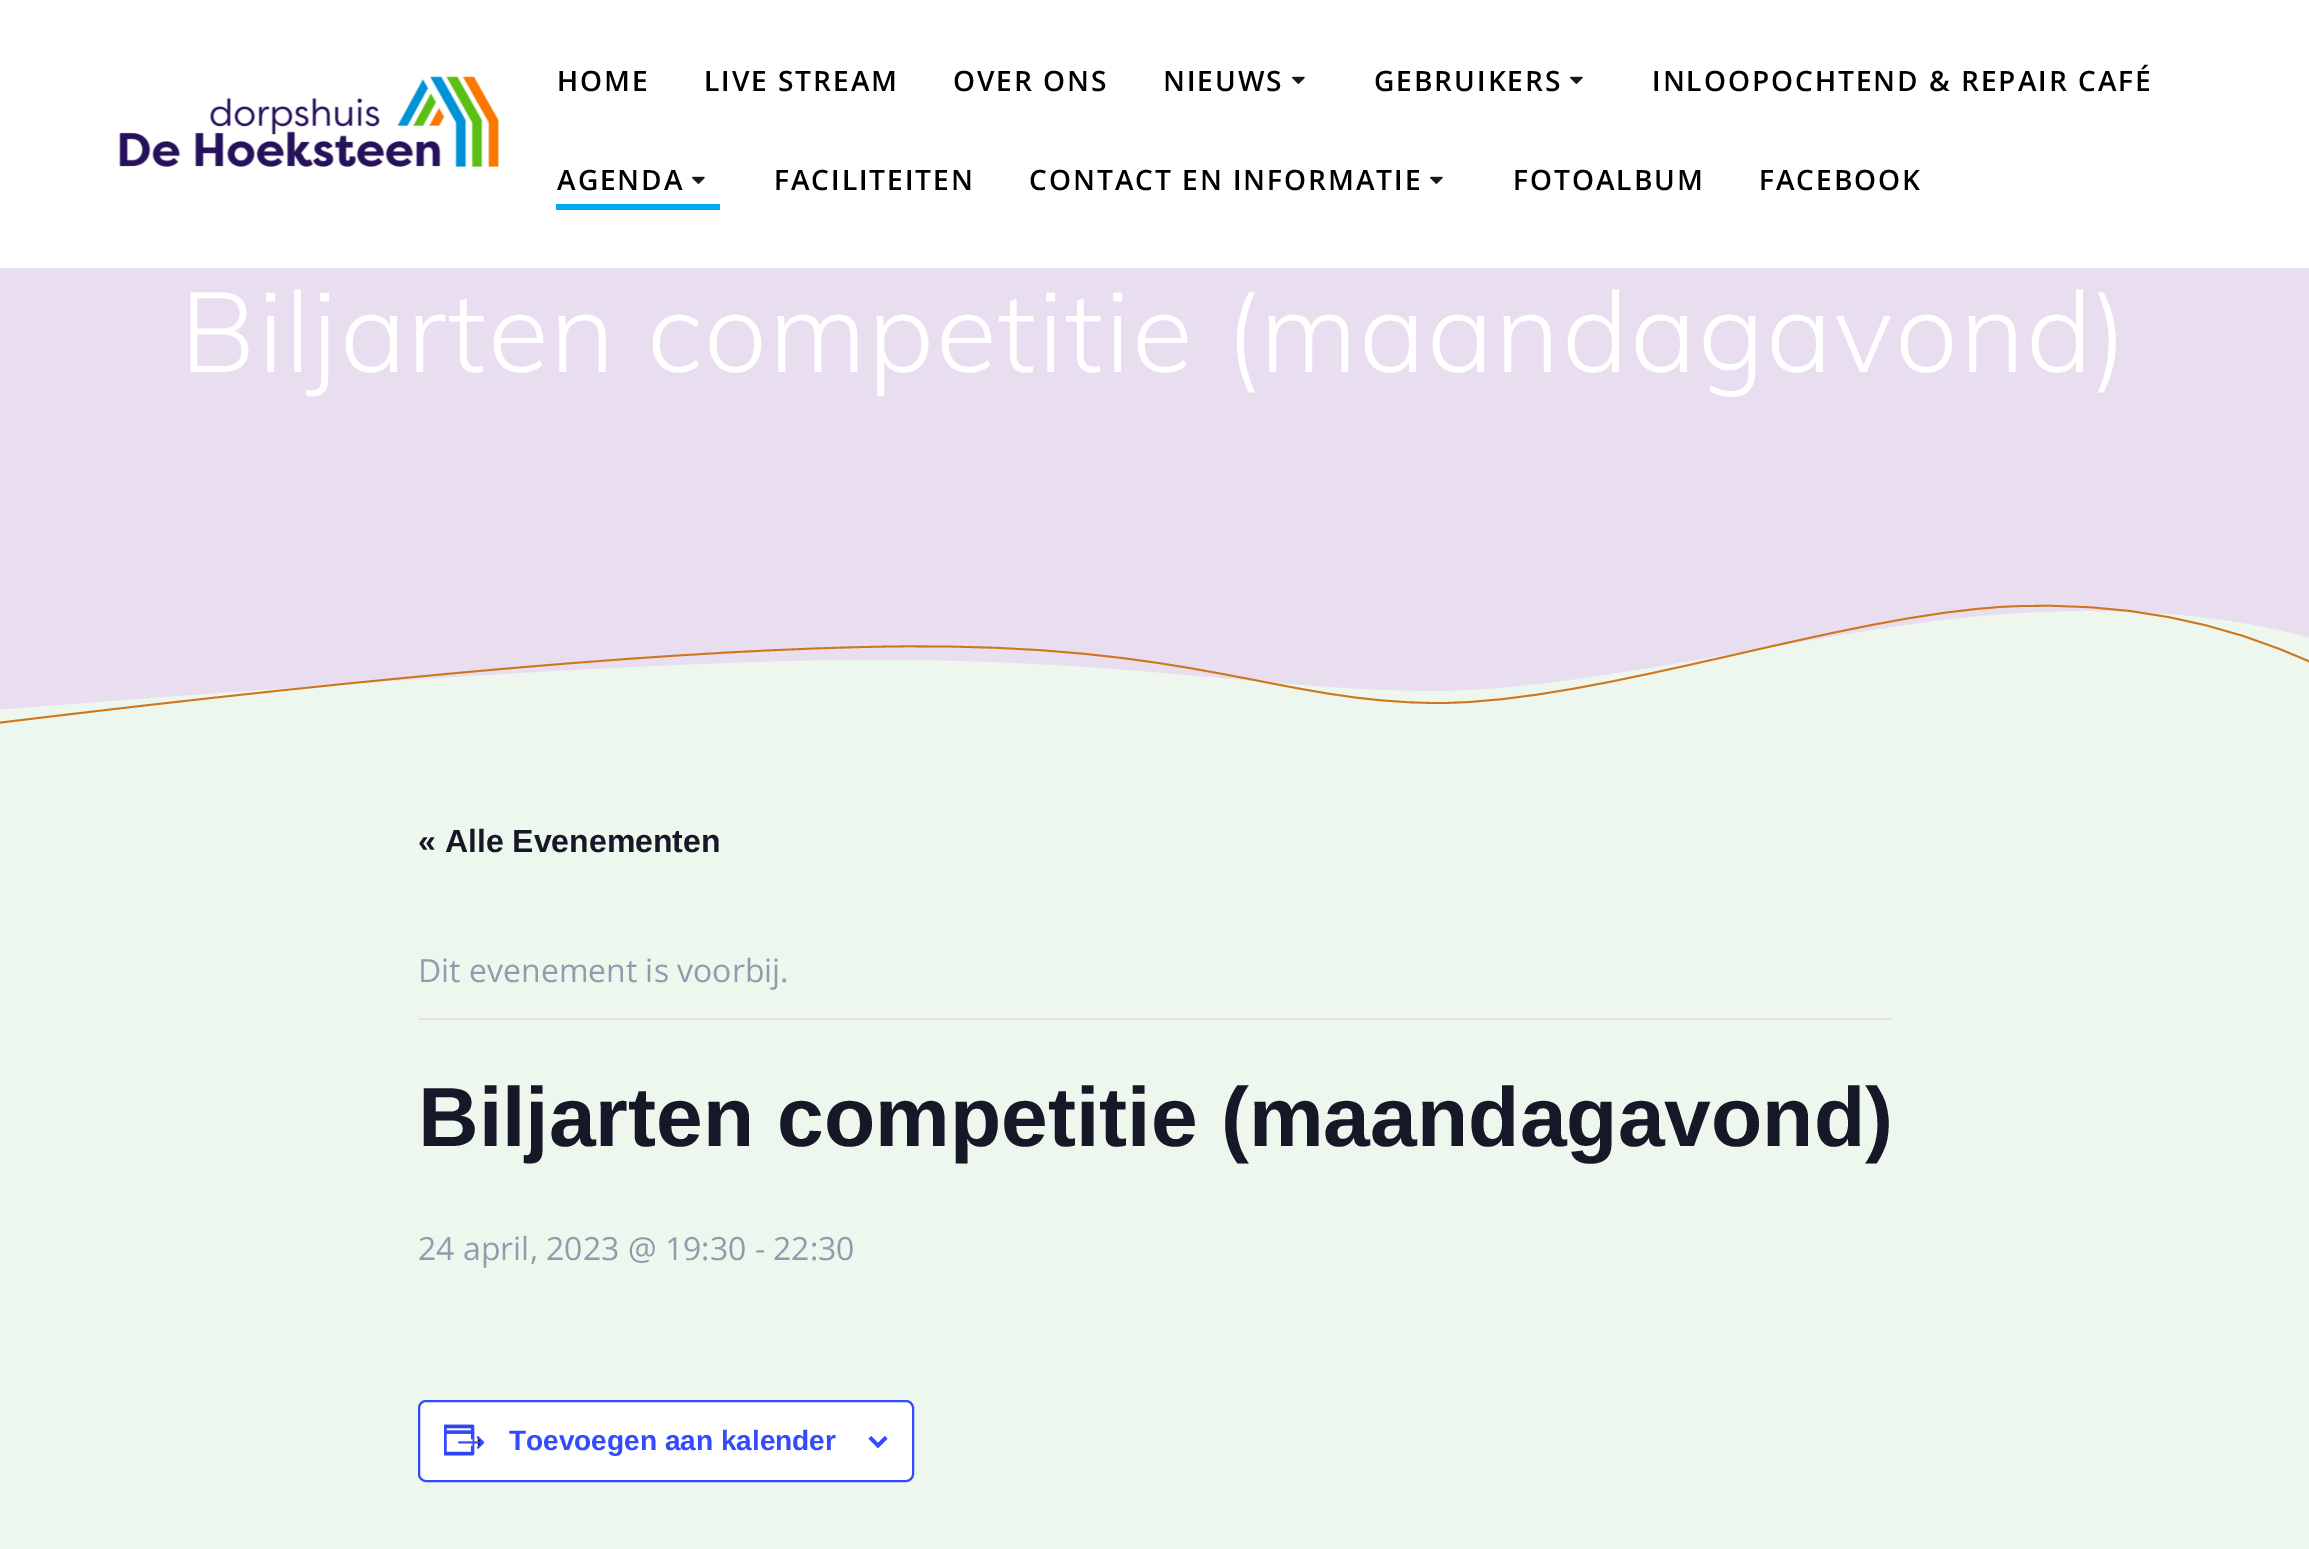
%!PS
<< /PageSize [2309 1549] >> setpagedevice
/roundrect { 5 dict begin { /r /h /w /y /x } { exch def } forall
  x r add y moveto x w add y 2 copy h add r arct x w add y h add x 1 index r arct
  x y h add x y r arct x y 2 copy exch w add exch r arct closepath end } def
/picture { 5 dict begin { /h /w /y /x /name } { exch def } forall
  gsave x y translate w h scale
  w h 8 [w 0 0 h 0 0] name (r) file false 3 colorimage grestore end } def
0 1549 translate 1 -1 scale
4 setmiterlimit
0.933 0.969 0.929 setrgbcolor
0 0 2309 1549 rectfill
1 setgray
0 0 2309 268 rectfill
(img1.rgb) 119 76 380 91 picture
/OpenSans-SemiBold [28 0 0 -28 0 0] selectfont
0 setgray
557 91 moveto 2 0 (HOME) ashow
704 91 moveto 2 0 (LIVE STREAM) ashow
953 91 moveto 2 0 (OVER ONS) ashow
1163 91 moveto 2 0 (NIEUWS) ashow
(img2.rgb) 1292 76 13 8 picture
1374 91 moveto 2 0 (GEBRUIKERS) ashow
(img2.rgb) 1570 76 13 8 picture
1652 91 moveto 2 0 (INLOOPOCHTEND & REPAIR CAFÉ) ashow
0.012 0.663 0.957 setrgbcolor
556 204 164 6 rectfill
0 setgray
557 190 moveto 2 0 (AGENDA) ashow
(img2.rgb) 692 176 13 8 picture
774 190 moveto 2 0 (FACILITEITEN) ashow
1029 190 moveto 2 0 (CONTACT EN INFORMATIE) ashow
(img2.rgb) 1430 176 13 8 picture
1513 190 moveto 2 0 (FOTOALBUM) ashow
1759 190 moveto 2 0 (FACEBOOK) ashow
0.91 0.871 0.941 setrgbcolor
0 268 2309 442 rectfill
/Muli-Light [112 0 0 -112 0 0] selectfont
1 setgray
180 372 moveto 1.8 0 (Biljarten competitie \(maandagavond\)) ashow
gsave
0 600 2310 140 rectclip
0.933 0.969 0.929 setrgbcolor
newpath -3 710 moveto 428 676 725 659 889 660 curveto 1136 661 1277 691 1436 691 curveto 1595 691 1860 620 2025 613 curveto 2135 607 2232 616 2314 639 curveto 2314 740 lineto -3 742 lineto closepath fill
grestore
0.812 0.463 0.114 setrgbcolor
1.8 setlinewidth
newpath -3 723 moveto 394 674.5 692.5 649 893 646.5 curveto 1194 642.5 1279 703 1438.5 703 curveto 1598.5 703 1844 614 2009.5 606.5 curveto 2120 601.5 2221.5 620.5 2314.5 664 curveto stroke
/LiberationSans-Bold [32 0 0 -32 0 0] selectfont
0.078 0.094 0.153 setrgbcolor
418 852 moveto (« Alle Evenementen) show
0.894 setgray
418 1018 1474 2 rectfill
/OpenSans-Regular [32 0 0 -32 0 0] selectfont
0.557 0.616 0.682 setrgbcolor
418 982 moveto (Dit evenement is voorbij.) show
/LiberationSans-Bold [84 0 0 -84 0 0] selectfont
0.078 0.094 0.153 setrgbcolor
418 1146 moveto (Biljarten competitie \(maandagavond\)) show
/OpenSans-Regular [32 0 0 -32 0 0] selectfont
0.557 0.616 0.682 setrgbcolor
418 1260 moveto (24 april, 2023 @ 19:30 - 22:30) show
1 setgray
419 1401 494 80 7 roundrect gsave fill grestore
0.2 0.29 1 setrgbcolor
2 setlinewidth
stroke
(img3.rgb) 444 1424 41 32 picture
/LiberationSans-Bold [28 0 0 -28 0 0] selectfont
509 1450 moveto (Toevoegen aan kalender) show
(img4.rgb) 868 1436 20 12 picture
showpage
